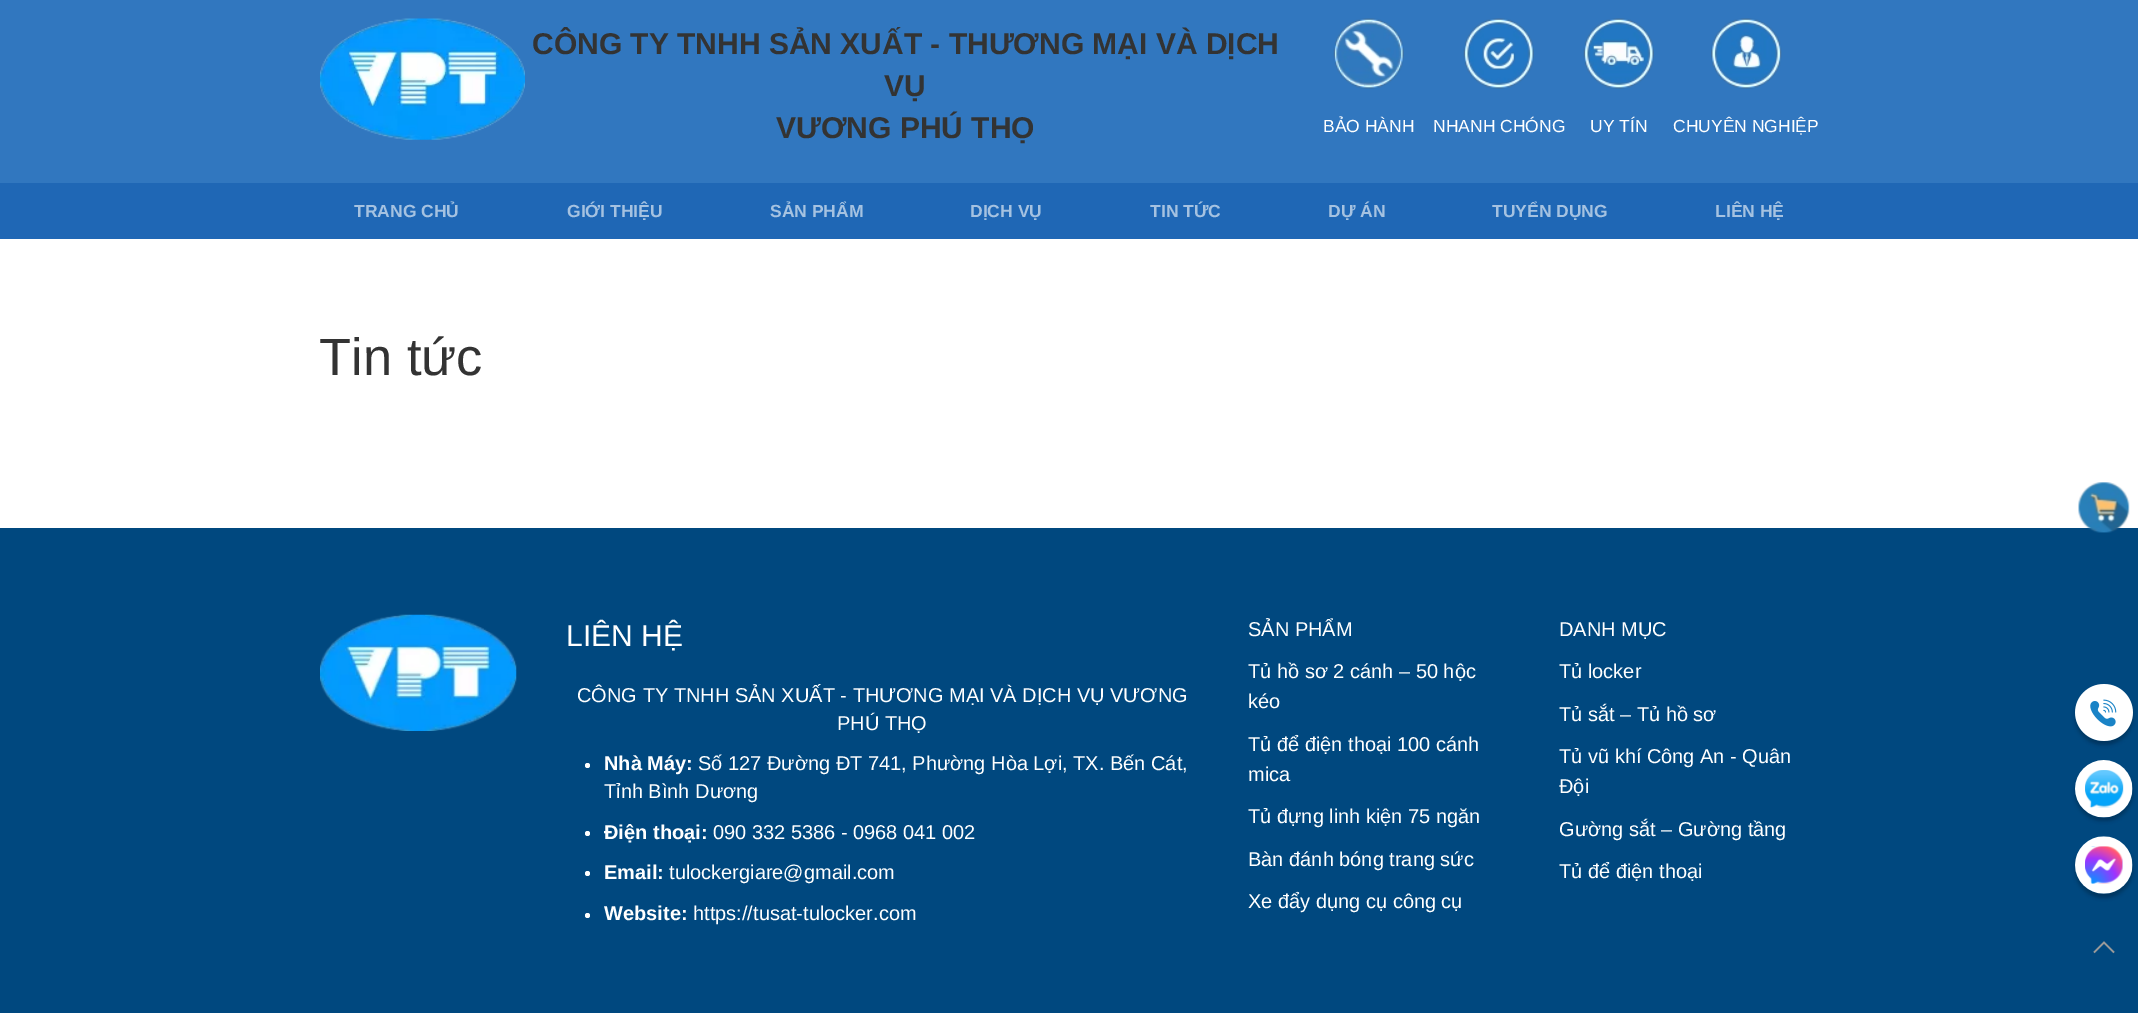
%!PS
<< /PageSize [2138 1013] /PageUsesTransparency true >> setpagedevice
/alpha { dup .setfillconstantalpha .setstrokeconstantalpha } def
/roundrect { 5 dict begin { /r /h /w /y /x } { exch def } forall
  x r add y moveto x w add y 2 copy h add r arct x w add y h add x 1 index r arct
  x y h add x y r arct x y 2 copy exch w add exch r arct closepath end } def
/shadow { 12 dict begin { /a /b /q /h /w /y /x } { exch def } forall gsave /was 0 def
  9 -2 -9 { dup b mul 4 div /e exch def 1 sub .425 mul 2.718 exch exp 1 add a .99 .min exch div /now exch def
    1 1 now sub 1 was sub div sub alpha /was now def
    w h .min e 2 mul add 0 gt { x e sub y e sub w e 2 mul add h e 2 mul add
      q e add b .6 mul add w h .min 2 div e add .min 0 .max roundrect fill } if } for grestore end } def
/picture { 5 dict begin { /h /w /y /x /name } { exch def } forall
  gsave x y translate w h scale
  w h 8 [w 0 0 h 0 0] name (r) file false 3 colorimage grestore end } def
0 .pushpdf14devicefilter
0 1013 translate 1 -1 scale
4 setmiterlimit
1 setgray
0 0 2138 1013 rectfill
0.192 0.467 0.749 setrgbcolor
0 0 2138 183 rectfill
(img1.rgb) 320 18 205 122 picture
/LiberationSans-Bold [30 0 0 -30 0 0] selectfont
0.2 setgray
532 54 moveto (CÔNG TY TNHH SẢN XUẤT - THƯƠNG MẠI VÀ DỊCH) show
884 96 moveto (VỤ) show
776 138 moveto (VƯƠNG PHÚ THỌ) show
(img2.rgb) 1333 18 71 71 picture
/LiberationSans-Regular [17.5 0 0 -17.5 0 0] selectfont
1 setgray
1323 132 moveto (BẢO HÀNH) show
(img3.rgb) 1463 18 71 71 picture
1433 132 moveto (NHANH CHÓNG) show
(img4.rgb) 1583 18 71 71 picture
1590 132 moveto (UY TÍN) show
(img5.rgb) 1711 18 71 71 picture
1673 132 moveto (CHUYÊN NGHIỆP) show
0.122 0.404 0.71 setrgbcolor
0 183 2138 56 rectfill
/LiberationSans-Bold [17.5 0 0 -17.5 0 0] selectfont
0.647 0.761 0.882 setrgbcolor
354 217 moveto (TRANG CHỦ) show
567 217 moveto (GIỚI THIỆU) show
770 217 moveto (SẢN PHẨM) show
970 217 moveto (DỊCH VỤ) show
1150 217 moveto (TIN TỨC) show
1328 217 moveto (DỰ ÁN) show
1492 217 moveto (TUYỂN DỤNG) show
1715 217 moveto (LIÊN HỆ) show
/LiberationSans-Regular [52.5 0 0 -52.5 0 0] selectfont
0.2 setgray
319 375 moveto (Tin tức) show
0 0.282 0.498 setrgbcolor
0 528 2138 485 rectfill
(img6.rgb) 320 614 197 117 picture
/LiberationSans-Regular [30 0 0 -30 0 0] selectfont
1 setgray
566 646 moveto (LIÊN HỆ) show
/LiberationSans-Regular [20 0 0 -20 0 0] selectfont
577 702 moveto (CÔNG TY TNHH SẢN XUẤT - THƯƠNG MẠI VÀ DỊCH VỤ VƯƠNG) show
837 730 moveto (PHÚ THỌ) show
newpath 587.5 765.5 2.5 0 360 arc closepath fill
/LiberationSans-Bold [20 0 0 -20 0 0] selectfont
604 770 moveto (Nhà Máy:) show
/LiberationSans-Regular [20 0 0 -20 0 0] selectfont
698 770 moveto (Số 127 Đường ĐT 741, Phường Hòa Lợi, TX. Bến Cát,) show
604 798 moveto (Tỉnh Bình Dương) show
newpath 587.5 833.5 2.5 0 360 arc closepath fill
/LiberationSans-Bold [20 0 0 -20 0 0] selectfont
604 839 moveto (Điện thoại:) show
/LiberationSans-Regular [20 0 0 -20 0 0] selectfont
713 839 moveto (090 332 5386 - 0968 041 002) show
newpath 587.5 873.5 2.5 0 360 arc closepath fill
/LiberationSans-Bold [20 0 0 -20 0 0] selectfont
604 879 moveto (Email:) show
/LiberationSans-Regular [20 0 0 -20 0 0] selectfont
669 879 moveto (tulockergiare@gmail.com) show
newpath 587.5 915.5 2.5 0 360 arc closepath fill
/LiberationSans-Bold [20 0 0 -20 0 0] selectfont
604 920 moveto (Website:) show
/LiberationSans-Regular [20 0 0 -20 0 0] selectfont
693 920 moveto (https://tusat-tulocker.com) show
1248 636 moveto (SẢN PHẨM) show
1248 678 moveto (Tủ hồ sơ 2 cánh – 50 hộc) show
1248 708 moveto (kéo) show
1248 751 moveto (Tủ để điện thoại 100 cánh) show
1248 781 moveto (mica) show
1248 823 moveto (Tủ đựng linh kiện 75 ngăn) show
1248 866 moveto (Bàn đánh bóng trang sức) show
1248 908 moveto (Xe đẩy dụng cụ công cụ) show
1559 636 moveto (DANH MỤC) show
1559 678 moveto (Tủ locker) show
1559 721 moveto (Tủ sắt – Tủ hồ sơ) show
1559 763 moveto (Tủ vũ khí Công An - Quân) show
1559 793 moveto (Đội) show
1559 836 moveto (Gường sắt – Gường tầng) show
1559 878 moveto (Tủ để điện thoại) show
(img7.rgb) 2078 482 52 51 picture
0 setgray
2075 688 58 57 28.5 2 0.25 shadow
(img8.rgb) 2075 684 58 57 picture
2075 764 58 57 28.5 2 0.25 shadow
(img9.rgb) 2075 760 58 58 picture
2075 840 58 58 29 2 0.25 shadow
(img10.rgb) 2075 836 58 58 picture
0.6 setgray
1.5 setlinewidth
newpath 2094 952.5 moveto 2104 942.5 lineto 2114 952.5 lineto stroke
.poppdf14devicefilter showpage
